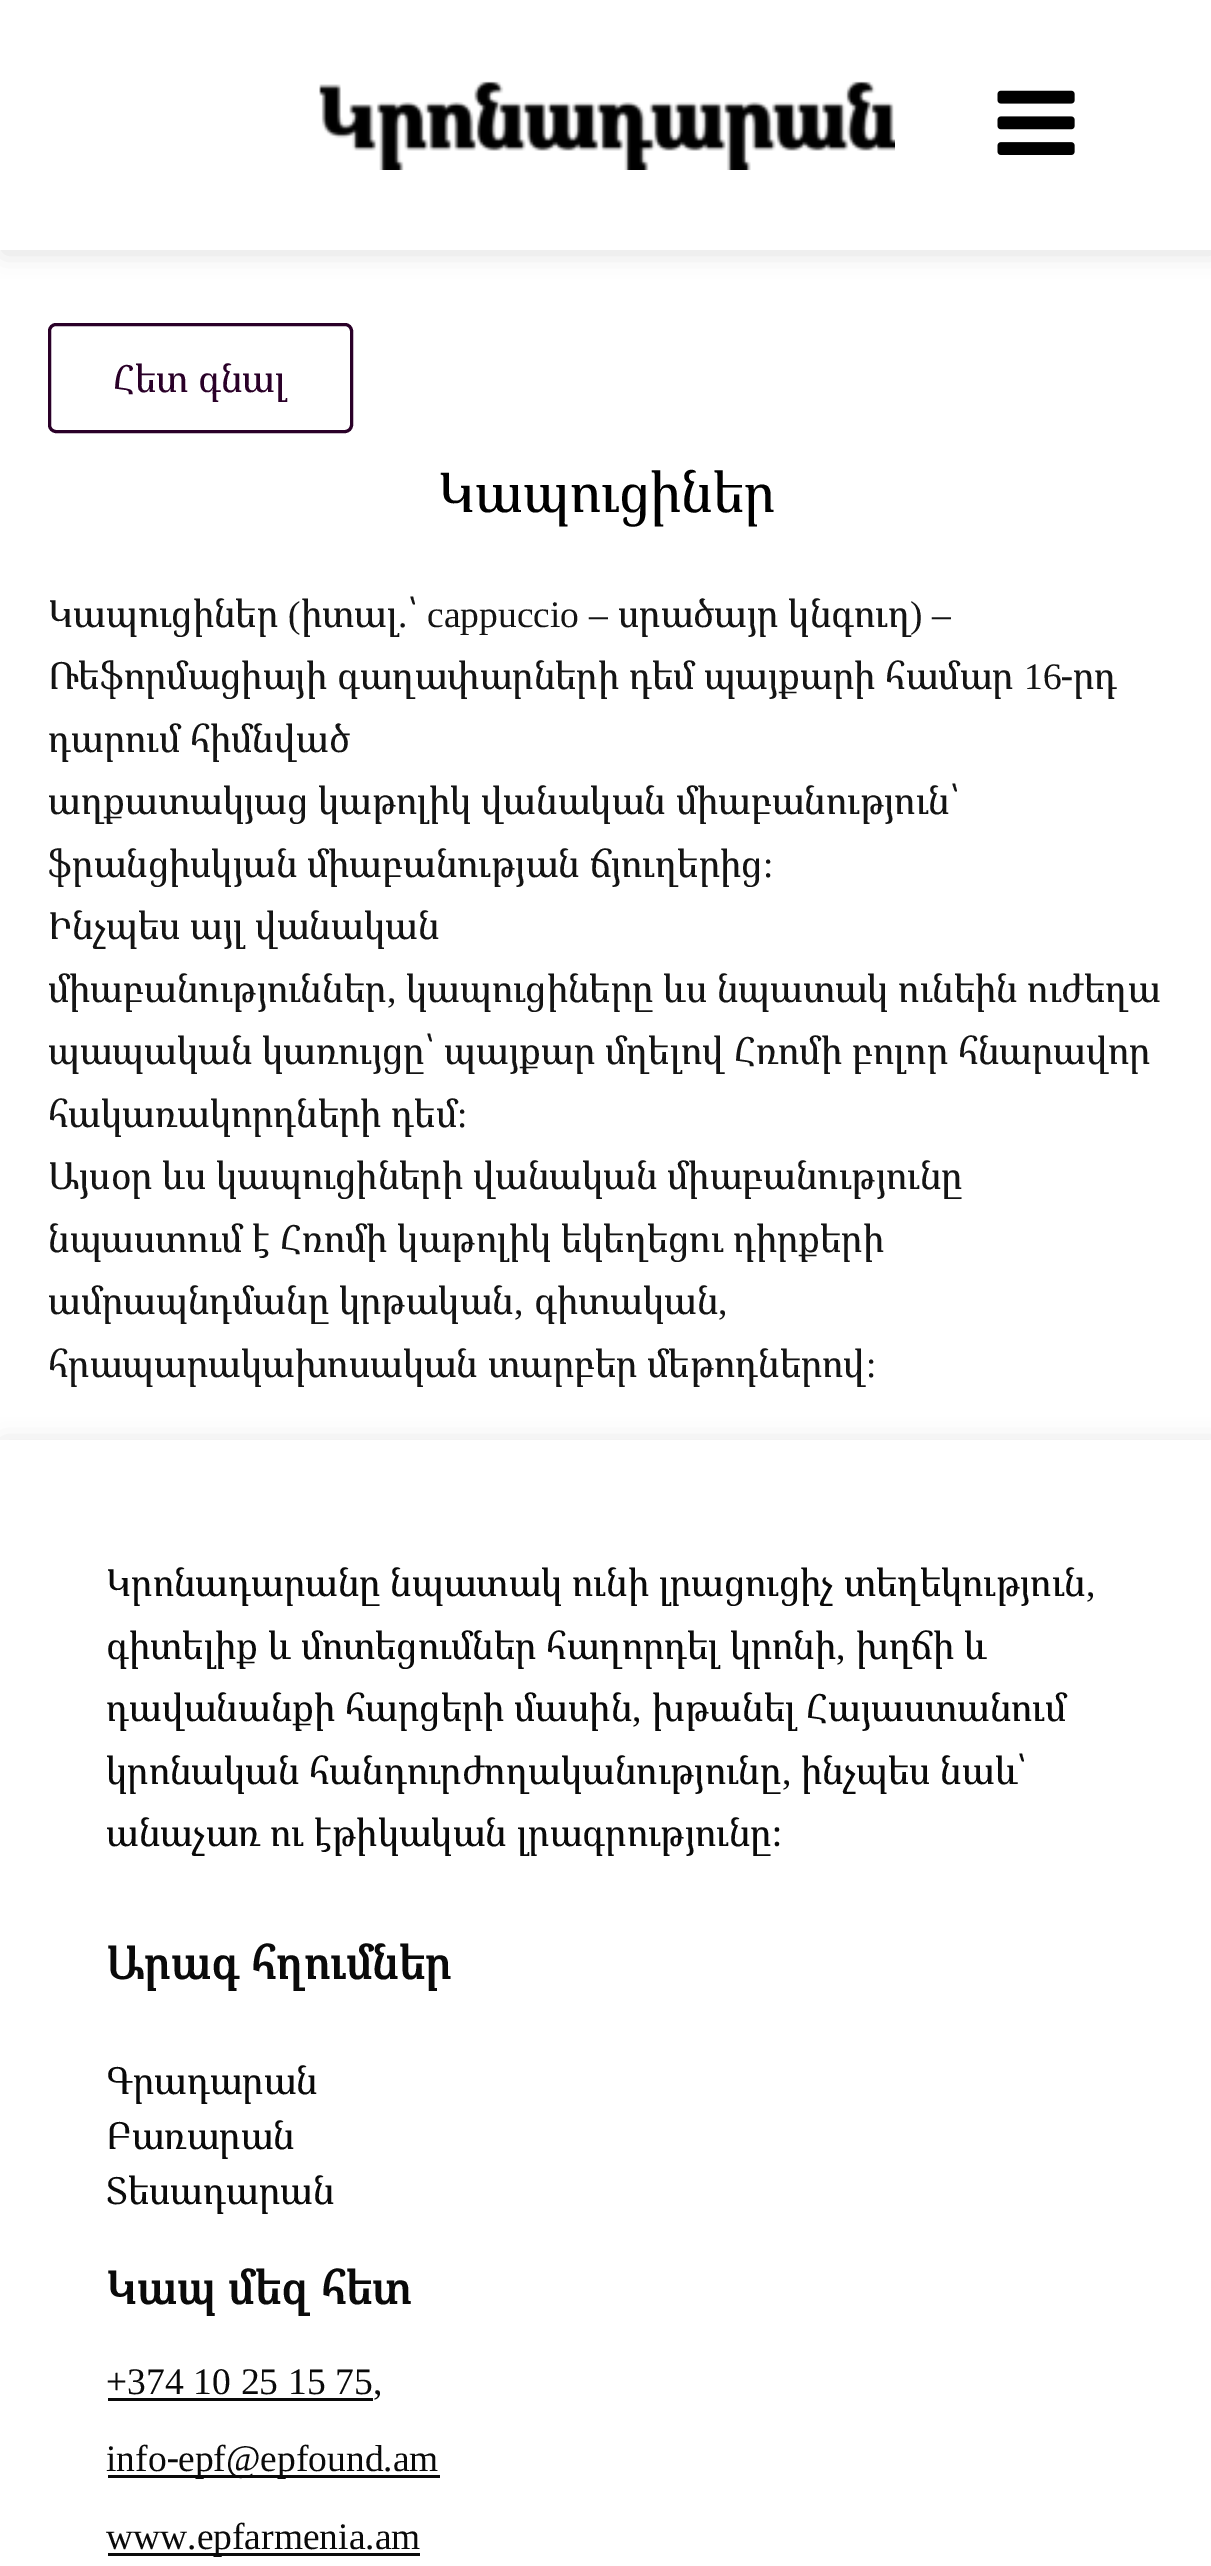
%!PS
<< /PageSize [1211 2566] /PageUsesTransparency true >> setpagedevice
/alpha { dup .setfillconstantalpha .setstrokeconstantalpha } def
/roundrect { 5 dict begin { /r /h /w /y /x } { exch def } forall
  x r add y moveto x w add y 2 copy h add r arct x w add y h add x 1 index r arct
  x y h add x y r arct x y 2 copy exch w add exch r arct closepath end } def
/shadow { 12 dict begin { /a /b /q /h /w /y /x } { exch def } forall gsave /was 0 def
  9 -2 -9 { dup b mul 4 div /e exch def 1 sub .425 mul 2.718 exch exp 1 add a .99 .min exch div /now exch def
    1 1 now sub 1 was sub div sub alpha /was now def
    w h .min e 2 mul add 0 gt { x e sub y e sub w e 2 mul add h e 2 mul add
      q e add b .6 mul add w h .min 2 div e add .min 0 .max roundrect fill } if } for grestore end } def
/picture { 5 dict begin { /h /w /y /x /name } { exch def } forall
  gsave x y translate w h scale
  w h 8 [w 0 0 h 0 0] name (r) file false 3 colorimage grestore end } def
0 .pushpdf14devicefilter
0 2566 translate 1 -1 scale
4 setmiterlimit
1 setgray
0 0 1211 2566 rectfill
gsave
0 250 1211 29 rectclip
0.875 setgray
3 3 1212 250 0 12.5 1 shadow
grestore
(img1.rgb) 319 81 576 89 picture
(img2.rgb) 997 90 78 65 picture
0.165 0 0.157 setrgbcolor
3 setlinewidth
49.5 324.5 302 107 6.5 roundrect stroke
/NotoSerifArmenian-Regular [37.5 0 0 -37.5 0 0] selectfont
113 392 moveto (Հետ գնալ) show
/NotoSerifArmenian-Regular [55 0 0 -55 0 0] selectfont
0 setgray
438 512 moveto (Կապուցիներ) show
/NotoSerifArmenian-Regular [37.5 0 0 -37.5 0 0] selectfont
0.078 setgray
48 627 moveto (Կապուցիներ) show
/LiberationSerif-Regular [37.5 0 0 -37.5 0 0] selectfont
288 627 moveto (\() show
/NotoSerifArmenian-Regular [37.5 0 0 -37.5 0 0] selectfont
301 627 moveto (իտալ) show
408 627 moveto (՝) show
/LiberationSerif-Regular [37.5 0 0 -37.5 0 0] selectfont
427 627 moveto (cappuccio) show
589 627 moveto (–) show
/NotoSerifArmenian-Regular [37.5 0 0 -37.5 0 0] selectfont
618 627 moveto (սրածայր կնգուղ) show
/LiberationSerif-Regular [37.5 0 0 -37.5 0 0] selectfont
910 627 moveto (\)) show
932 627 moveto (–) show
398 627 moveto (.) show
/NotoSerifArmenian-Regular [37.5 0 0 -37.5 0 0] selectfont
48 689 moveto (Ռեֆորմացիայի գաղափարների դեմ պայքարի համար) show
/LiberationSerif-Regular [37.5 0 0 -37.5 0 0] selectfont
1024 689 moveto (16) show
/NotoSerifArmenian-Regular [37.5 0 0 -37.5 0 0] selectfont
1061 689 moveto (-րդ) show
48 752 moveto (դարում հիմնված) show
48 814 moveto (աղքատակյաց կաթոլիկ վանական միաբանություն՝) show
48 877 moveto (ֆրանցիսկյան միաբանության ճյուղերից) show
/LiberationSerif-Regular [37.5 0 0 -37.5 0 0] selectfont
763 877 moveto (:) show
/NotoSerifArmenian-Regular [37.5 0 0 -37.5 0 0] selectfont
48 939 moveto (Ինչպես այլ վանական) show
48 1002 moveto (միաբանություններ) show
/LiberationSerif-Regular [37.5 0 0 -37.5 0 0] selectfont
387 1002 moveto (,) show
/NotoSerifArmenian-Regular [37.5 0 0 -37.5 0 0] selectfont
406 1002 moveto (կապուցիները ևս նպատակ ունեին ուժեղա) show
48 1064 moveto (պապական կառույցը՝ պայքար մղելով Հռոմի բոլոր հնարավոր) show
48 1127 moveto (հակառակորդների դեմ) show
/LiberationSerif-Regular [37.5 0 0 -37.5 0 0] selectfont
457 1127 moveto (:) show
/NotoSerifArmenian-Regular [37.5 0 0 -37.5 0 0] selectfont
48 1189 moveto (Այսօր ևս կապուցիների վանական միաբանությունը) show
48 1252 moveto (նպաստում է Հռոմի կաթոլիկ եկեղեցու դիրքերի) show
48 1314 moveto (ամրապնդմանը կրթական) show
/LiberationSerif-Regular [37.5 0 0 -37.5 0 0] selectfont
514 1314 moveto (,) show
/NotoSerifArmenian-Regular [37.5 0 0 -37.5 0 0] selectfont
534 1314 moveto (գիտական) show
/LiberationSerif-Regular [37.5 0 0 -37.5 0 0] selectfont
718 1314 moveto (,) show
/NotoSerifArmenian-Regular [37.5 0 0 -37.5 0 0] selectfont
48 1377 moveto (հրապարակախոսական տարբեր մեթոդներով) show
/LiberationSerif-Regular [37.5 0 0 -37.5 0 0] selectfont
866 1377 moveto (:) show
gsave
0 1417 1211 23 rectclip
0.875 setgray
3 1443 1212 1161 0 12.5 1 shadow
grestore
/NotoSerifArmenian-Regular [37.5 0 0 -37.5 0 0] selectfont
0.039 setgray
106 1596 moveto (Կրոնադարանը նպատակ ունի լրացուցիչ տեղեկություն) show
/LiberationSerif-Regular [37.5 0 0 -37.5 0 0] selectfont
1086 1596 moveto (,) show
/NotoSerifArmenian-Regular [37.5 0 0 -37.5 0 0] selectfont
106 1659 moveto (գիտելիք և մոտեցումներ հաղորդել կրոնի) show
/LiberationSerif-Regular [37.5 0 0 -37.5 0 0] selectfont
836 1659 moveto (,) show
/NotoSerifArmenian-Regular [37.5 0 0 -37.5 0 0] selectfont
856 1659 moveto (խղճի և) show
106 1721 moveto (դավանանքի հարցերի մասին) show
/LiberationSerif-Regular [37.5 0 0 -37.5 0 0] selectfont
632 1721 moveto (,) show
/NotoSerifArmenian-Regular [37.5 0 0 -37.5 0 0] selectfont
652 1721 moveto (խթանել Հայաստանում) show
106 1784 moveto (կրոնական հանդուրժողականությունը) show
/LiberationSerif-Regular [37.5 0 0 -37.5 0 0] selectfont
782 1784 moveto (,) show
/NotoSerifArmenian-Regular [37.5 0 0 -37.5 0 0] selectfont
801 1784 moveto (ինչպես նաև՝) show
106 1846 moveto (անաչառ ու էթիկական լրագրությունը։) show
/NotoSerifArmenian-Bold [45 0 0 -45 0 0] selectfont
106 1979 moveto 0.75 0 (Արագ հղումներ) ashow
/NotoSerifArmenian-Regular [37.5 0 0 -37.5 0 0] selectfont
106 2094 moveto (Գրադարան) show
106 2149 moveto (Բառարան) show
106 2204 moveto (Տեսադարան) show
/NotoSerifArmenian-Bold [45 0 0 -45 0 0] selectfont
106 2304 moveto 0.75 0 (Կապ մեզ հետ) ashow
/LiberationSerif-Regular [37.5 0 0 -37.5 0 0] selectfont
106 2394 moveto 0.5 0 32 (+374 10 25 15 75) widthshow
108 2398 265 3 rectfill
373 2394 moveto (,) show
106 2471 moveto (info) show
/NotoSerifArmenian-Regular [37.5 0 0 -37.5 0 0] selectfont
167 2471 moveto (-) show
108 2475 332 3 rectfill
/LiberationSerif-Regular [37.5 0 0 -37.5 0 0] selectfont
178 2471 moveto (epf@epfound.am) show
108 2553 312 3 rectfill
106 2549 moveto (www.epfarmenia.am) show
.poppdf14devicefilter showpage
